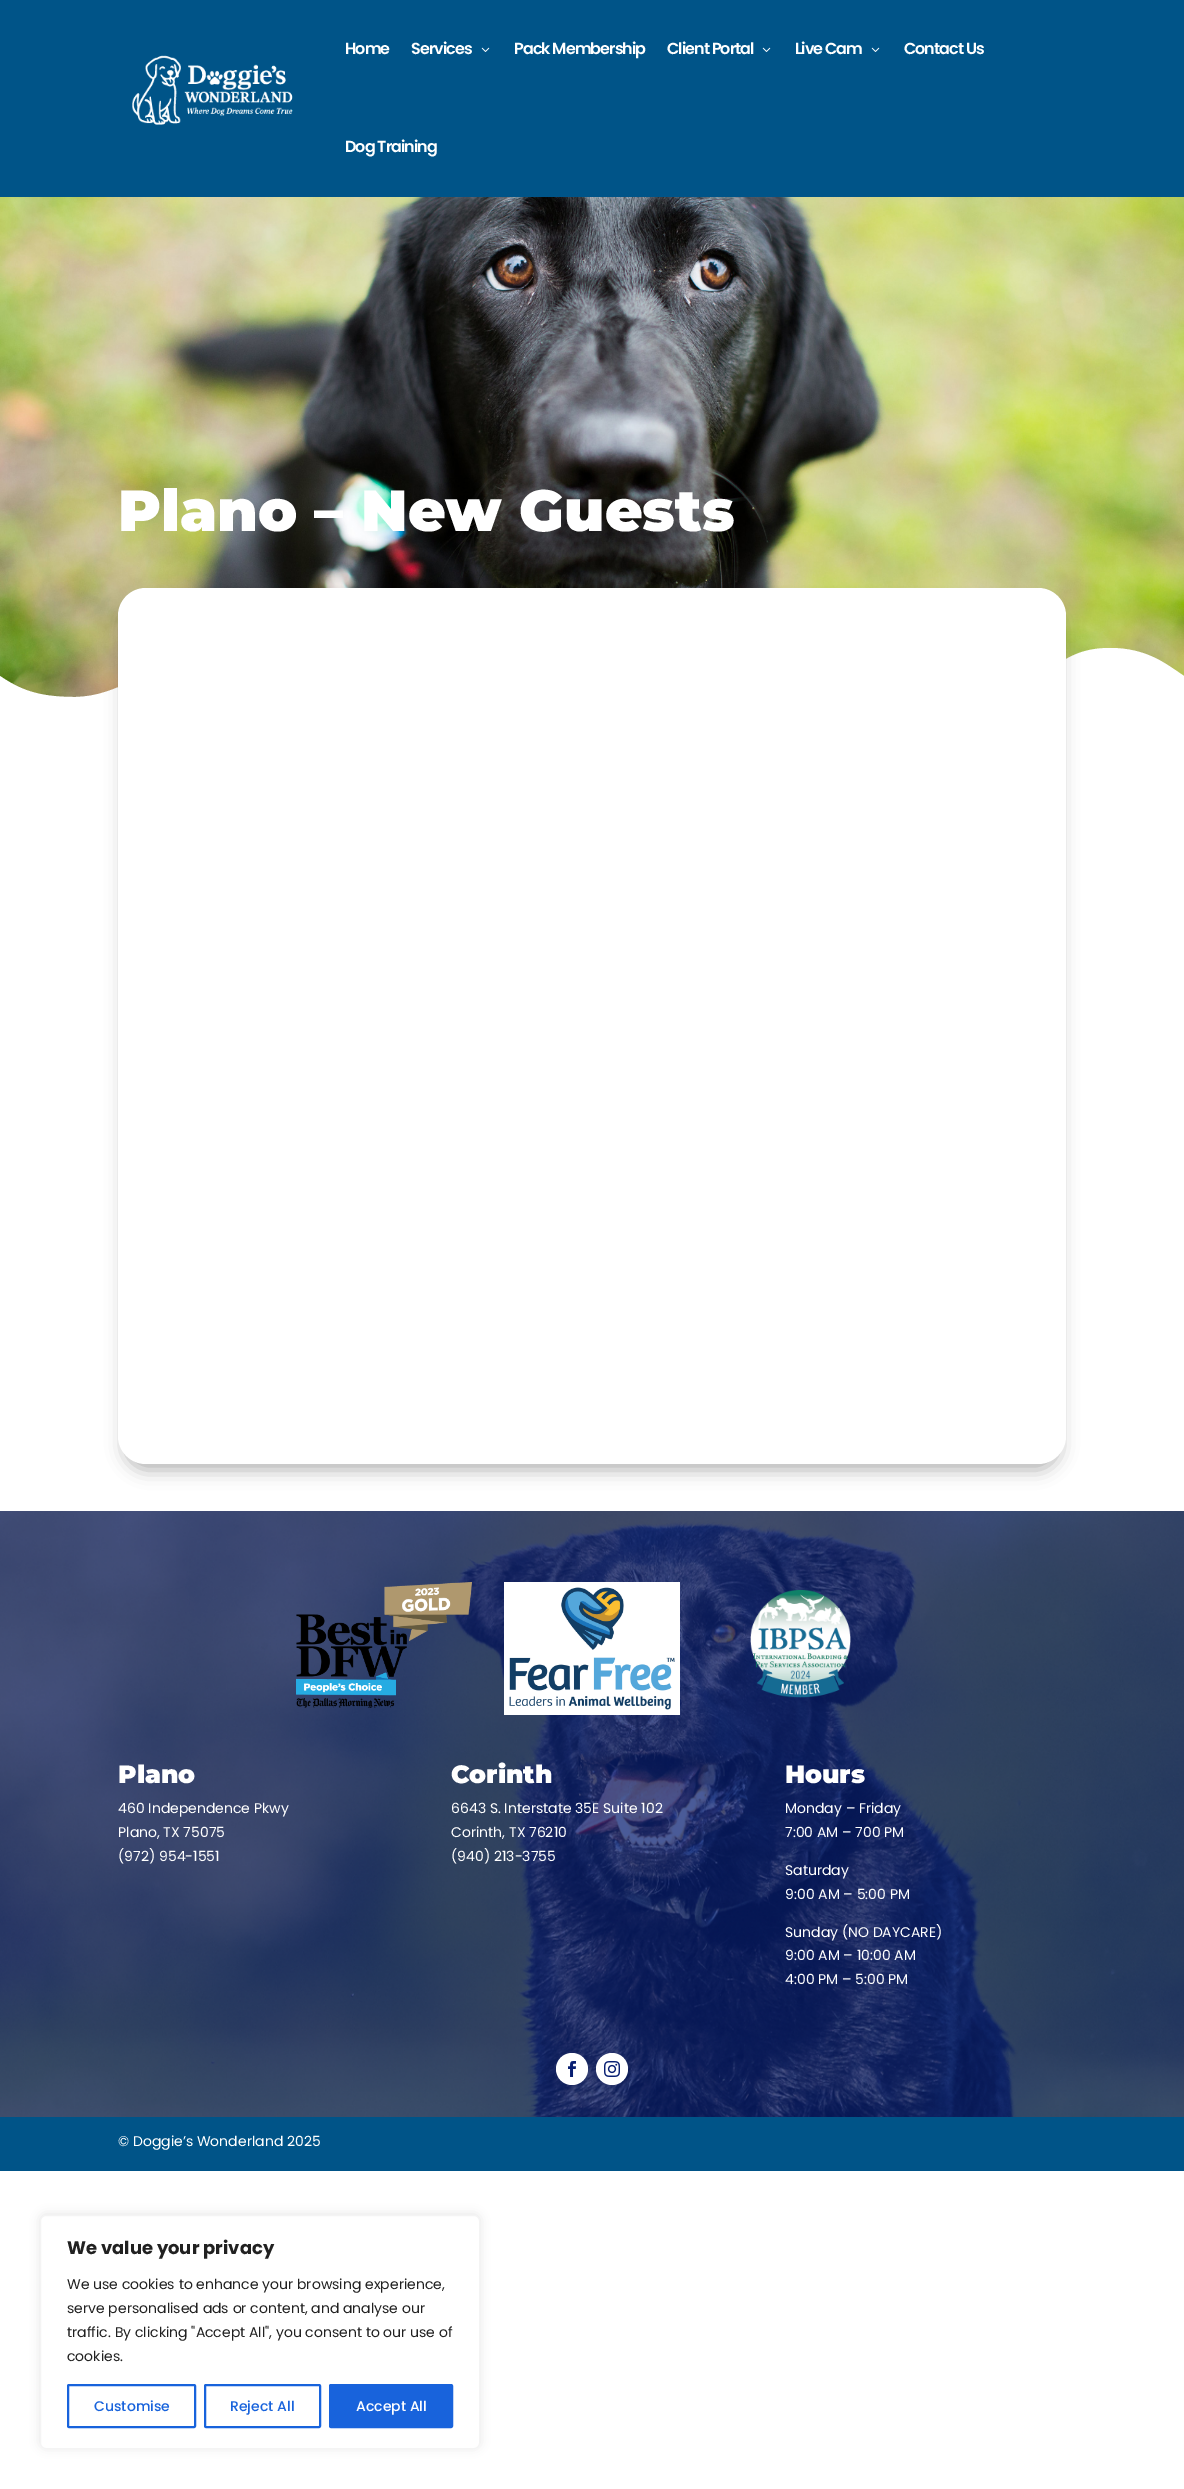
%!PS
<< /PageSize [1184 2489] /PageUsesTransparency true >> setpagedevice
/alpha { dup .setfillconstantalpha .setstrokeconstantalpha } def
/roundrect { 5 dict begin { /r /h /w /y /x } { exch def } forall
  x r add y moveto x w add y 2 copy h add r arct x w add y h add x 1 index r arct
  x y h add x y r arct x y 2 copy exch w add exch r arct closepath end } def
/shadow { 12 dict begin { /a /b /q /h /w /y /x } { exch def } forall gsave /was 0 def
  9 -2 -9 { dup b mul 4 div /e exch def 1 sub .425 mul 2.718 exch exp 1 add a .99 .min exch div /now exch def
    1 1 now sub 1 was sub div sub alpha /was now def
    w h .min e 2 mul add 0 gt { x e sub y e sub w e 2 mul add h e 2 mul add
      q e add b .6 mul add w h .min 2 div e add .min 0 .max roundrect fill } if } for grestore end } def
/picture { 5 dict begin { /h /w /y /x /name } { exch def } forall
  gsave x y translate w h scale
  w h 8 [w 0 0 h 0 0] name (r) file false 3 colorimage grestore end } def
0 .pushpdf14devicefilter
0 2489 translate 1 -1 scale
4 setmiterlimit
1 setgray
0 0 1184 2489 rectfill
0 0.329 0.533 setrgbcolor
0 0 1184 197 rectfill
(img1.rgb) 132 55 161 70 picture
/Poppins-SemiBold [16 0 0 -16 0 0] selectfont
1 setgray
345 54 moveto -1 0 (Home) ashow
411 54 moveto -1 0 (Services) ashow
(img2.rgb) 481 47 9 5 picture
514 54 moveto -1 0 (Pack Membership) ashow
667 54 moveto -1 0 (Client Portal) ashow
(img2.rgb) 762 47 9 5 picture
795 54 moveto -1 0 (Live Cam) ashow
(img2.rgb) 871 47 9 5 picture
904 54 moveto -1 0 (Contact Us) ashow
345 152 moveto -1 0 (Dog Training) ashow
(img3.rgb) 0 197 1184 500 picture
/Montserrat-Black [58 0 0 -58 0 0] selectfont
118 531 moveto (Plano – New Guests) show
newpath 1184 676 moveto 1166 664 1147 648 1110 648 curveto 1057 648 1057 681 1004 681 curveto 954 681 948 653 897 653 curveto 854 653 855 677 790 677 curveto 707 677 717 615 616 615 curveto 512 615 503 702 392 702 curveto 299 702 283 663 214 663 curveto 143 663 122 697 74 697 curveto 37 697 19 689 0 676 curveto 0 715 lineto 1184 715 lineto closepath fill
0 setgray
124 606 936 864 22 9 0.3 shadow
1 setgray
118 588 948 876 28 roundrect fill
(img4.rgb) 0 1511 1184 606 picture
(img5.rgb) 296 1582 176 126 picture
(img6.rgb) 504 1582 176 133 picture
(img7.rgb) 750 1589 101 109 picture
/Montserrat-Black [25 0 0 -25 0 0] selectfont
118 1783 moveto (Plano) show
/Poppins-Regular [14 0 0 -14 0 0] selectfont
118 1813 moveto (460 Independence Pkwy) show
118 1837 moveto (Plano, TX 75075) show
118 1861 moveto (\(972\) 954-1551) show
/Montserrat-Black [25 0 0 -25 0 0] selectfont
451 1783 moveto (Corinth) show
/Poppins-Regular [14 0 0 -14 0 0] selectfont
451 1813 moveto (6643 S. Interstate 35E Suite 102) show
451 1837 moveto (Corinth, TX 76210) show
451 1861 moveto (\(940\) 213-3755) show
/Montserrat-Black [25 0 0 -25 0 0] selectfont
785 1783 moveto (Hours) show
/Poppins-Regular [14 0 0 -14 0 0] selectfont
785 1813 moveto (Monday – Friday) show
785 1837 moveto (7:00 AM – 700 PM) show
785 1875 moveto (Saturday) show
785 1899 moveto (9:00 AM – 5:00 PM) show
785 1937 moveto (Sunday \(NO DAYCARE\)) show
785 1960 moveto (9:00 AM – 10:00 AM) show
785 1984 moveto (4:00 PM – 5:00 PM) show
newpath 572 2069 16 0 360 arc closepath fill
(img8.rgb) 568 2061 8 16 picture
newpath 612 2069 16 0 360 arc closepath fill
(img9.rgb) 604 2061 16 16 picture
0 0.329 0.533 setrgbcolor
0 2117 1184 54 rectfill
1 setgray
118 2146 moveto (© Doggie’s Wonderland 2025) show
0.675 0.671 0.671 setrgbcolor
40 2214 440 234 6 5 0.3 shadow
1 setgray
40.5 2215.5 439 233 5.5 roundrect gsave fill grestore
0.957 setgray
stroke
/Poppins-Bold [18 0 0 -18 0 0] selectfont
0.129 setgray
67 2254 moveto (We value your privacy) show
/Poppins-Regular [14 0 0 -14 0 0] selectfont
67 2289 moveto (We use cookies to enhance your browsing experience,) show
67 2313 moveto (serve personalised ads or content, and analyse our) show
67 2337 moveto (traffic. By clicking "Accept All", you consent to our use of) show
67 2361 moveto (cookies.) show
0.094 0.388 0.863 setrgbcolor
2 setlinewidth
68 2385 127 42 1 roundrect stroke
/Poppins-Medium [14 0 0 -14 0 0] selectfont
94 2411 moveto (Customise) show
205 2385 115 42 1 roundrect stroke
230 2411 moveto (Reject All) show
330 2385 122 42 1 roundrect gsave fill grestore
stroke
1 setgray
356 2411 moveto (Accept All) show
.poppdf14devicefilter showpage
